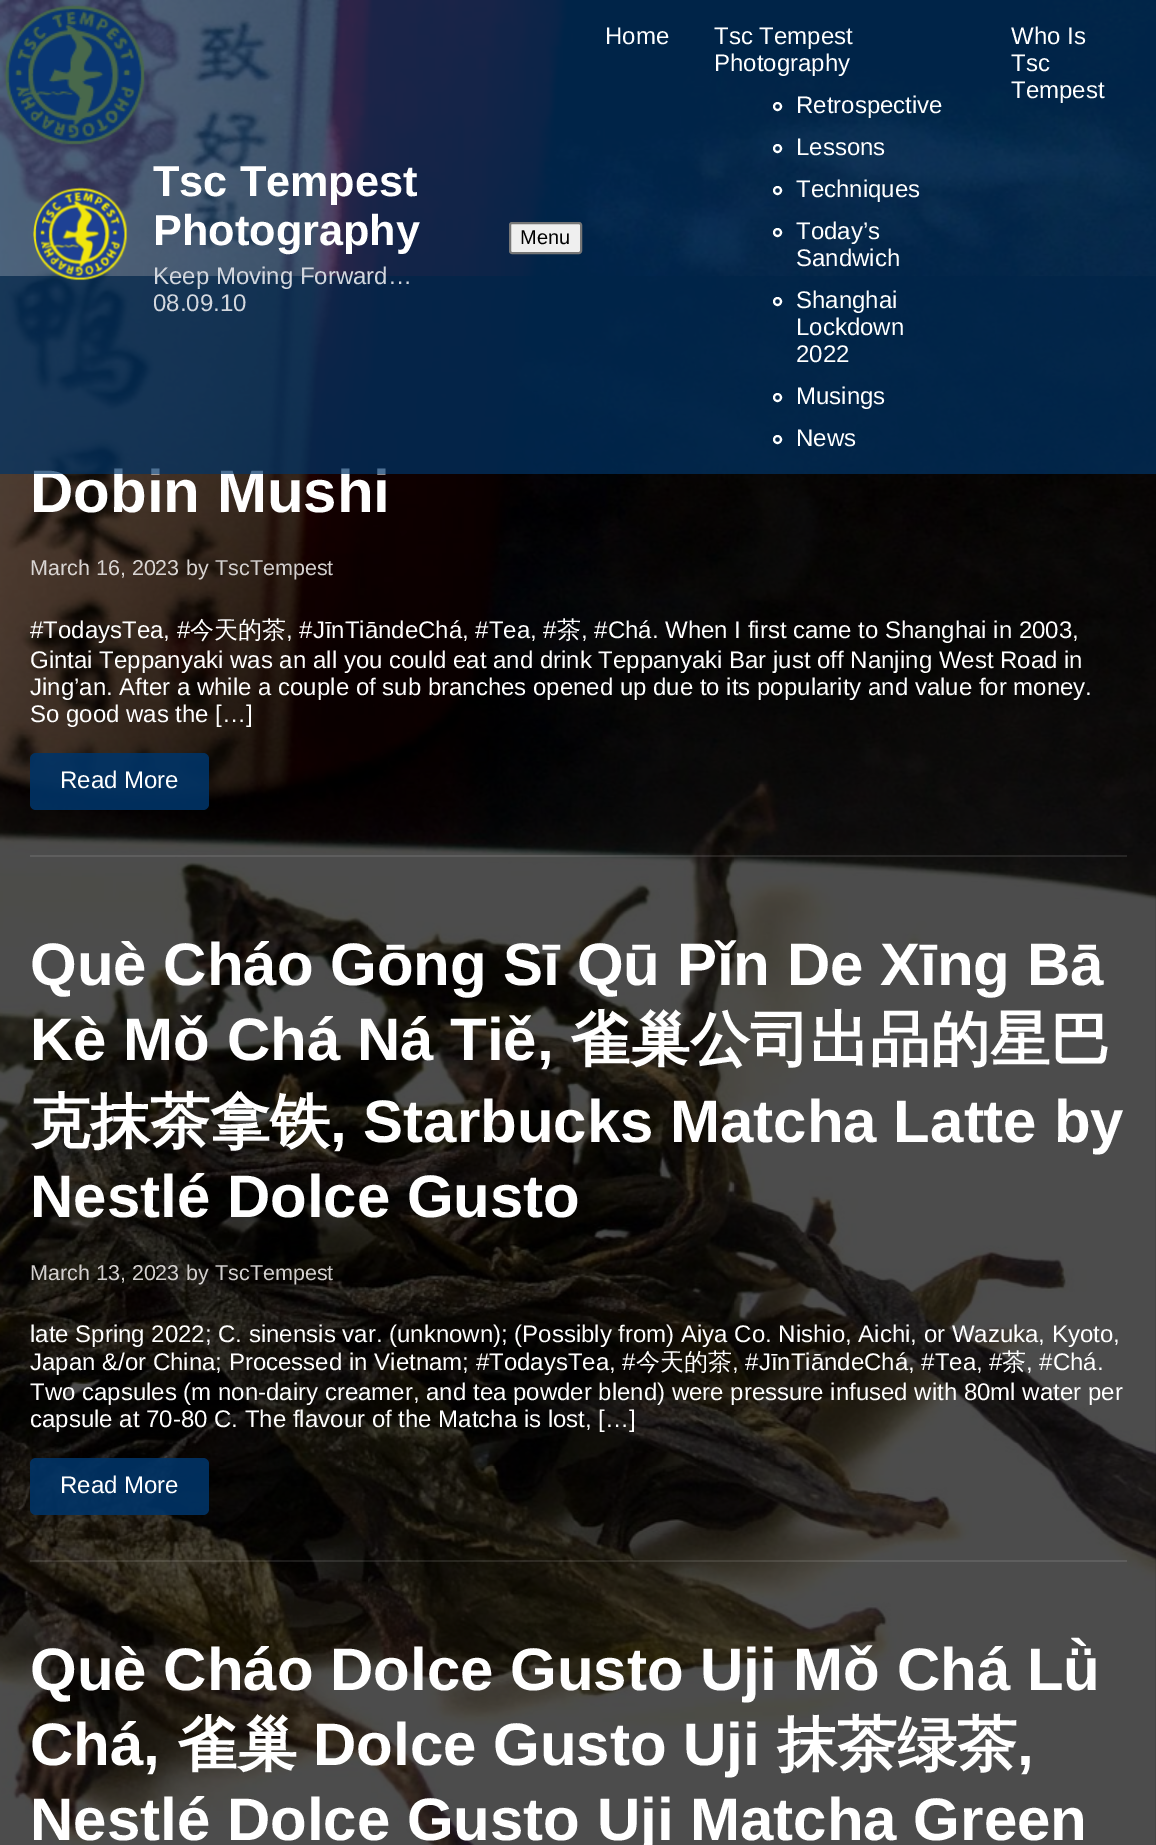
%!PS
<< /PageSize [1156 1845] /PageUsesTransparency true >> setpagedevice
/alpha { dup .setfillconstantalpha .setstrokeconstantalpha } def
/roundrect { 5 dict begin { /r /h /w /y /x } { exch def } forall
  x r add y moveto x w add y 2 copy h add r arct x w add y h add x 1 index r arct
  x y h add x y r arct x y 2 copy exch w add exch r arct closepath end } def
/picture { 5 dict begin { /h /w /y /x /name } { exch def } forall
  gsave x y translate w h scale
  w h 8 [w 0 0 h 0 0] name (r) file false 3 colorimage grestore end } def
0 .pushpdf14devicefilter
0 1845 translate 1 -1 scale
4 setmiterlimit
1 setgray
0 0 1156 1845 rectfill
(img1.rgb) 0 0 1156 1845 picture
(img2.rgb) 4 4 141 141 picture
0.7 alpha
0 setgray
0 276 1156 1569 rectfill
/LiberationSans-Bold [60 0 0 -60 0 0] selectfont
1 alpha
1 setgray
30 512 moveto (Dobin Mushi) show
0.7 alpha
0 0.2 0.4 setrgbcolor
0 0 1156 474 rectfill
1 alpha
(img3.rgb) 33 187 95 94 picture
/LiberationSans-Bold [43.25 0 0 -43.25 0 0] selectfont
1 setgray
153 196 moveto (Tsc Tempest) show
153 245 moveto (Photography) show
/LiberationSans-Regular [24 0 0 -24 0 0] selectfont
0.827 0.843 0.871 setrgbcolor
153 284 moveto (Keep Moving Forward…) show
153 311 moveto (08.09.10) show
0.937 setgray
510 223 71 30 2 roundrect gsave fill grestore
0.463 setgray
2 setlinewidth
stroke
/LiberationSans-Regular [20 0 0 -20 0 0] selectfont
0 setgray
520 244 moveto (Menu) show
/LiberationSans-Regular [24 0 0 -24 0 0] selectfont
1 setgray
605 44 moveto (Home) show
714 44 moveto (Tsc Tempest) show
714 71 moveto (Photography) show
newpath 777.5 106.5 3.5 0 360 arc closepath stroke
796 113 moveto (Retrospective) show
newpath 777.5 148.5 3.5 0 360 arc closepath stroke
796 155 moveto (Lessons) show
newpath 777.5 190.5 3.5 0 360 arc closepath stroke
796 197 moveto (Techniques) show
newpath 777.5 232.5 3.5 0 360 arc closepath stroke
796 239 moveto (Today’s) show
796 266 moveto (Sandwich) show
newpath 777.5 301.5 3.5 0 360 arc closepath stroke
796 308 moveto (Shanghai) show
796 335 moveto (Lockdown) show
796 362 moveto (2022) show
newpath 777.5 397.5 3.5 0 360 arc closepath stroke
796 404 moveto (Musings) show
newpath 777.5 439.5 3.5 0 360 arc closepath stroke
796 446 moveto (News) show
1011 44 moveto (Who Is) show
1011 71 moveto (Tsc) show
1011 98 moveto (Tempest) show
0.1 alpha
30 855 1097 2 rectfill
/LiberationSans-Regular [21.5 0 0 -21.5 0 0] selectfont
1 alpha
0.851 0.835 0.827 setrgbcolor
30 575 moveto (March 16, 2023) show
186 575 moveto (by) show
0.827 0.816 0.812 setrgbcolor
215 575 moveto (TscTempest) show
/LiberationSans-Regular [24 0 0 -24 0 0] selectfont
1 setgray
30 638 moveto (#TodaysTea, #) show
/WenQuanYiZenHei-Medium [24 0 0 -24 0 0] selectfont
190 638 moveto (今天的茶) show
/LiberationSans-Regular [24 0 0 -24 0 0] selectfont
286 638 moveto (, #JīnTiāndeChá, #Tea, #) show
/WenQuanYiZenHei-Medium [24 0 0 -24 0 0] selectfont
557 638 moveto (茶) show
/LiberationSans-Regular [24 0 0 -24 0 0] selectfont
581 638 moveto (, #Chá. When I first came to Shanghai in 2003,) show
30 668 moveto (Gintai Teppanyaki was an all you could eat and drink Teppanyaki Bar just off Nanjing West Road in) show
30 695 moveto (Jing’an. After a while a couple of sub branches opened up due to its popularity and value for money.) show
30 722 moveto (So good was the […]) show
0.9 alpha
0 0.2 0.4 setrgbcolor
30 753 179 57 6 roundrect fill
1 alpha
1 setgray
60 788 moveto (Read More) show
0.1 alpha
30 1560 1097 2 rectfill
/LiberationSans-Bold [60 0 0 -60 0 0] selectfont
1 alpha
30 985 moveto (Què Cháo Gōng Sī Qū Pǐn De Xīng Bā) show
30 1060 moveto (Kè Mǒ Chá Ná Tiě,) show
/WenQuanYiZenHei-Bold [60 0 0 -60 0 0] selectfont
570 1060 moveto (雀巢公司出品的星巴) show
30 1142 moveto (克抹茶拿铁) show
/LiberationSans-Bold [60 0 0 -60 0 0] selectfont
330 1142 moveto (, Starbucks Matcha Latte by) show
30 1217 moveto (Nestlé Dolce Gusto) show
/LiberationSans-Regular [21.5 0 0 -21.5 0 0] selectfont
0.827 0.816 0.812 setrgbcolor
30 1280 moveto (March 13, 2023) show
186 1280 moveto (by) show
215 1280 moveto (TscTempest) show
/LiberationSans-Regular [24 0 0 -24 0 0] selectfont
1 setgray
30 1342 moveto (late Spring 2022; C. sinensis var. \(unknown\); \(Possibly from\) Aiya Co. Nishio, Aichi, or Wazuka, Kyoto,) show
30 1370 moveto (Japan &/or China; Processed in Vietnam; #TodaysTea, #) show
/WenQuanYiZenHei-Medium [24 0 0 -24 0 0] selectfont
636 1370 moveto (今天的茶) show
/LiberationSans-Regular [24 0 0 -24 0 0] selectfont
732 1370 moveto (, #JīnTiāndeChá, #Tea, #) show
/WenQuanYiZenHei-Medium [24 0 0 -24 0 0] selectfont
1002 1370 moveto (茶) show
/LiberationSans-Regular [24 0 0 -24 0 0] selectfont
1026 1370 moveto (, #Chá.) show
30 1400 moveto (Two capsules \(m non-dairy creamer, and tea powder blend\) were pressure infused with 80ml water per) show
30 1427 moveto (capsule at 70-80 C. The flavour of the Matcha is lost, […]) show
0.9 alpha
0 0.2 0.4 setrgbcolor
30 1458 179 57 6 roundrect fill
1 alpha
1 setgray
60 1493 moveto (Read More) show
/LiberationSans-Bold [60 0 0 -60 0 0] selectfont
30 1690 moveto (Què Cháo Dolce Gusto Uji Mǒ Chá Lǜ) show
30 1765 moveto (Chá,) show
/WenQuanYiZenHei-Bold [60 0 0 -60 0 0] selectfont
177 1765 moveto (雀巢) show
/LiberationSans-Bold [60 0 0 -60 0 0] selectfont
313 1765 moveto (Dolce Gusto Uji) show
/WenQuanYiZenHei-Bold [60 0 0 -60 0 0] selectfont
777 1765 moveto (抹茶绿茶) show
/LiberationSans-Bold [60 0 0 -60 0 0] selectfont
1017 1765 moveto (,) show
30 1840 moveto (Nestlé Dolce Gusto Uji Matcha Green) show
.poppdf14devicefilter showpage
